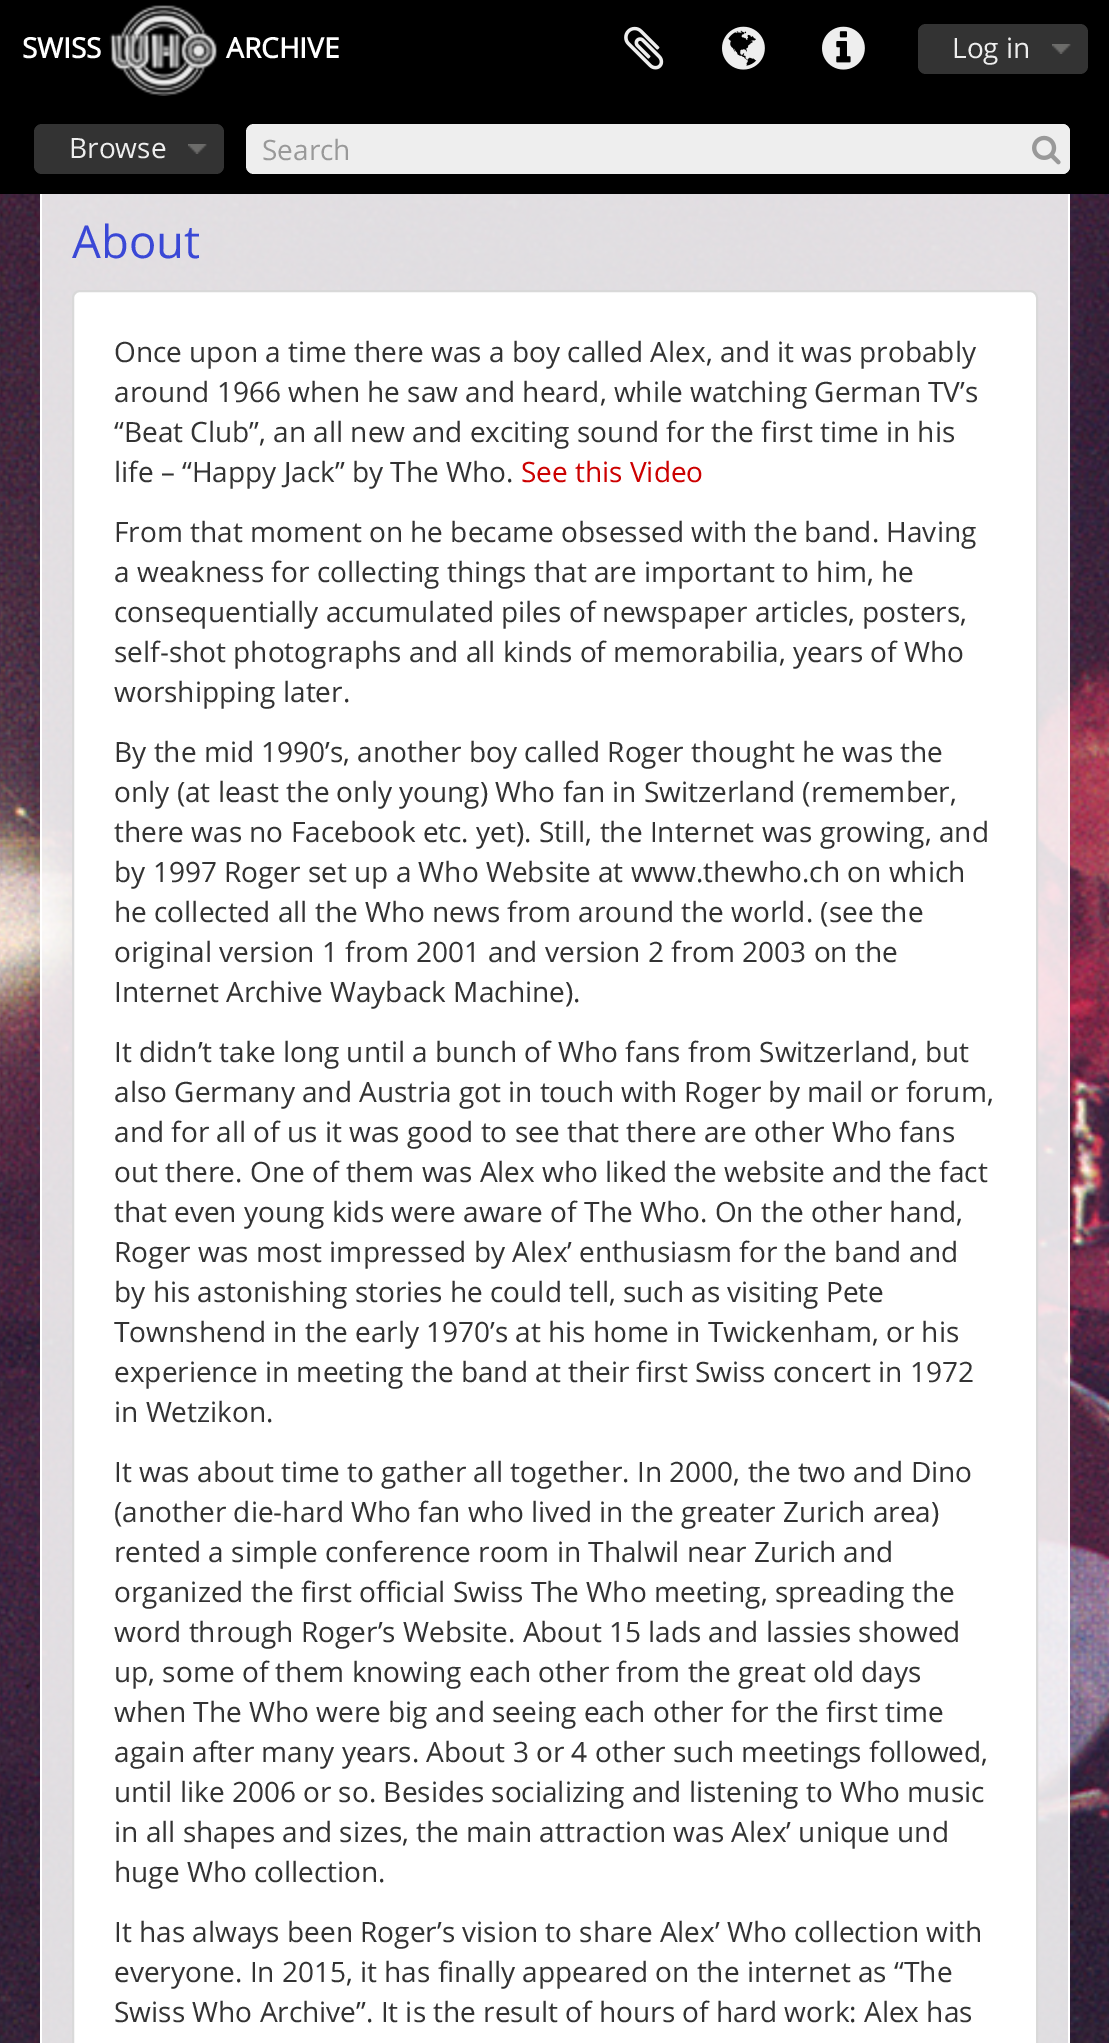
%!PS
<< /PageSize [1109 2043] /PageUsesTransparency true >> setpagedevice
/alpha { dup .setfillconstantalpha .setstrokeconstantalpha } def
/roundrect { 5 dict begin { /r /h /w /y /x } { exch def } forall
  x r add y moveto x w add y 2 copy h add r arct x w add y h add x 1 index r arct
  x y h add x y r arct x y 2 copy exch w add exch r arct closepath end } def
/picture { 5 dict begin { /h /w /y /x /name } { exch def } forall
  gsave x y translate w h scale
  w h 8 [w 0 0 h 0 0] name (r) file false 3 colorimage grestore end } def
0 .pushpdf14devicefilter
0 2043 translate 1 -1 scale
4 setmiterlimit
1 setgray
0 0 1109 2043 rectfill
(img1.rgb) 0 194 1109 1849 picture
0 setgray
0 0 1109 194 rectfill
/OpenSans-Bold [28 0 0 -28 0 0] selectfont
1 setgray
22 58 moveto (SWISS) show
(img2.rgb) 109 5 109 91 picture
226 58 moveto (ARCHIVE) show
(img3.rgb) 624 26 40 44 picture
(img4.rgb) 722 26 43 44 picture
(img5.rgb) 822 26 43 44 picture
0.2 setgray
918 24 170 50 8 roundrect fill
(img6.rgb) 1052 44 19 10 picture
/OpenSans-Regular [28 0 0 -28 0 0] selectfont
0.933 setgray
952 58 moveto (Log in) show
0.2 setgray
34 124 190 50 8 roundrect fill
(img6.rgb) 188 144 19 10 picture
0.933 setgray
69 158 moveto (Browse) show
246 124 824 50 8 roundrect fill
0.6 setgray
262 160 moveto (Search) show
0.933 setgray
newpath 1020 124 moveto 1062 124 lineto 1066.5 124 1070 127.5 1070 132 curveto 1070 166 lineto 1070 170.5 1066.5 174 1062 174 curveto 1020 174 lineto closepath fill
(img7.rgb) 1032 135 29 30 picture
0.85 alpha
1 setgray
42 194 1026 1849 rectfill
1 alpha
1068 194 2 1849 rectfill
40 194 2 1849 rectfill
/OpenSans-Regular [45.5 0 0 -45.5 0 0] selectfont
0.227 0.282 0.839 setrgbcolor
72 258 moveto (About) show
1 setgray
73 291 964 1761 7 roundrect gsave fill grestore
0.851 setgray
2 setlinewidth
stroke
/OpenSans-Regular [28 0 0 -28 0 0] selectfont
0.2 setgray
114 362 moveto (Once upon a time there was a boy called Alex, and it was probably) show
114 402 moveto (around 1966 when he saw and heard, while watching German TV’s) show
114 442 moveto (“Beat Club”, an all new and exciting sound for the first time in his) show
114 482 moveto (life – “Happy Jack” by The Who.) show
0.8 0 0 setrgbcolor
521 482 moveto (See this Video) show
0.2 setgray
114 542 moveto (From that moment on he became obsessed with the band. Having) show
114 582 moveto (a weakness for collecting things that are important to him, he) show
114 622 moveto (consequentially accumulated piles of newspaper articles, posters,) show
114 662 moveto (self-shot photographs and all kinds of memorabilia, years of Who) show
114 702 moveto (worshipping later.) show
114 762 moveto (By the mid 1990’s, another boy called Roger thought he was the) show
114 802 moveto (only \(at least the only young\) Who fan in Switzerland \(remember,) show
114 842 moveto (there was no Facebook etc. yet\). Still, the Internet was growing, and) show
114 882 moveto (by 1997 Roger set up a Who Website at www.thewho.ch on which) show
114 922 moveto (he collected all the Who news from around the world. \(see the) show
114 962 moveto (original version 1 from 2001 and version 2 from 2003 on the) show
114 1002 moveto (Internet Archive Wayback Machine\).) show
114 1062 moveto (It didn’t take long until a bunch of Who fans from Switzerland, but) show
114 1102 moveto (also Germany and Austria got in touch with Roger by mail or forum,) show
114 1142 moveto (and for all of us it was good to see that there are other Who fans) show
114 1182 moveto (out there. One of them was Alex who liked the website and the fact) show
114 1222 moveto (that even young kids were aware of The Who. On the other hand,) show
114 1262 moveto (Roger was most impressed by Alex’ enthusiasm for the band and) show
114 1302 moveto (by his astonishing stories he could tell, such as visiting Pete) show
114 1342 moveto (Townshend in the early 1970’s at his home in Twickenham, or his) show
114 1382 moveto (experience in meeting the band at their first Swiss concert in 1972) show
114 1422 moveto (in Wetzikon.) show
114 1482 moveto (It was about time to gather all together. In 2000, the two and Dino) show
114 1522 moveto (\(another die-hard Who fan who lived in the greater Zurich area\)) show
114 1562 moveto (rented a simple conference room in Thalwil near Zurich and) show
114 1602 moveto (organized the first official Swiss The Who meeting, spreading the) show
114 1642 moveto (word through Roger’s Website. About 15 lads and lassies showed) show
114 1682 moveto (up, some of them knowing each other from the great old days) show
114 1722 moveto (when The Who were big and seeing each other for the first time) show
114 1762 moveto (again after many years. About 3 or 4 other such meetings followed,) show
114 1802 moveto (until like 2006 or so. Besides socializing and listening to Who music) show
114 1842 moveto (in all shapes and sizes, the main attraction was Alex’ unique und) show
114 1882 moveto (huge Who collection.) show
114 1942 moveto (It has always been Roger’s vision to share Alex’ Who collection with) show
114 1982 moveto (everyone. In 2015, it has finally appeared on the internet as “The) show
114 2022 moveto (Swiss Who Archive”. It is the result of hours of hard work: Alex has) show
.poppdf14devicefilter showpage
